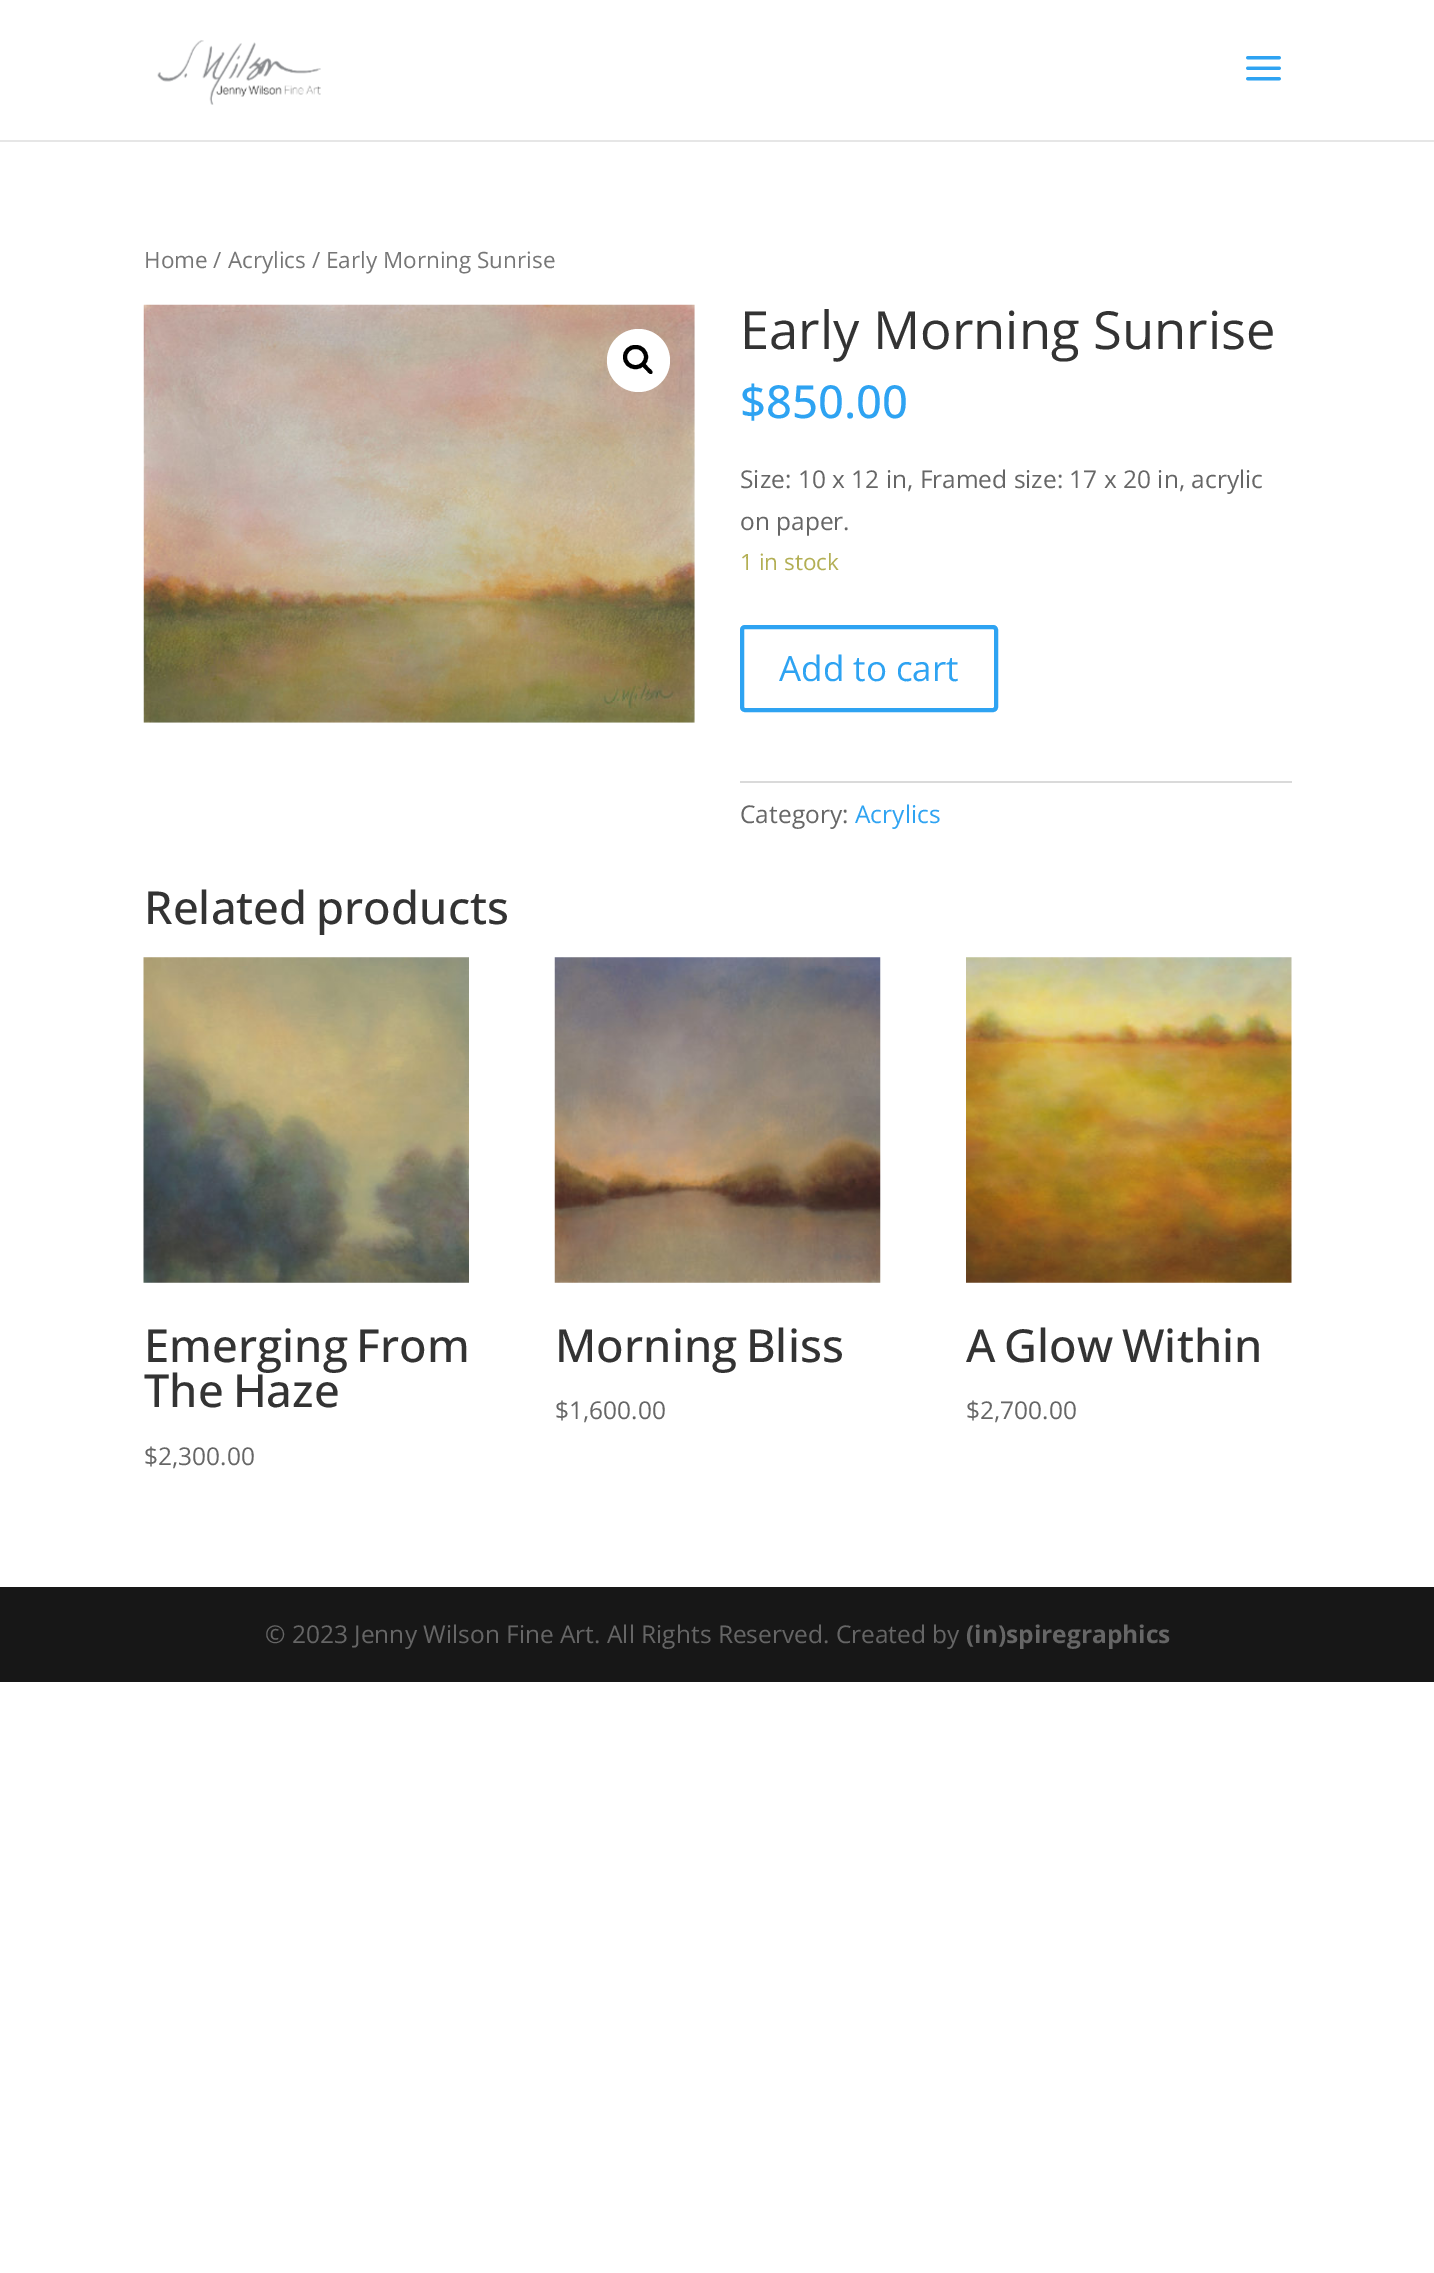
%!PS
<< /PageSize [1434 2273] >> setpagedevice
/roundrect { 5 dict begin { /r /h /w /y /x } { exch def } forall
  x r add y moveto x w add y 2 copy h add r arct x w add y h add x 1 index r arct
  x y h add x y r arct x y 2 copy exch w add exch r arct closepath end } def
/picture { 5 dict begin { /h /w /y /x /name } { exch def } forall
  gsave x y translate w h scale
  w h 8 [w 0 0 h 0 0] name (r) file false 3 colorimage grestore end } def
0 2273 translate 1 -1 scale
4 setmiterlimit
1 setgray
0 0 1434 2273 rectfill
0.902 setgray
0 140 1434 2 rectfill
(img1.rgb) 157 40 164 65 picture
(img2.rgb) 1246 56 35 25 picture
/OpenSans-Regular [22.5 0 0 -22.5 0 0] selectfont
0.463 setgray
144 268 moveto (Home / Acrylics / Early Morning Sunrise) show
(img3.rgb) 143 304 552 419 picture
1 setgray
newpath 638.5 360.5 31.5 0 360 arc closepath fill
0 setgray
4 setlinewidth
625 347 21 20 10 roundrect stroke
newpath 642.5 363.5 moveto 644.5 361.5 647.5 366.5 648.5 367.5 curveto 649.5 368.5 654 371.5 652 373.5 curveto 650 375.5 647 371 646 370 curveto 645 369 640.5 365.5 642.5 363.5 curveto closepath fill
/OpenSans-Regular [52.5 0 0 -52.5 0 0] selectfont
0.2 setgray
740 349 moveto (Early Morning Sunrise) show
/OpenSans-Medium [45.5 0 0 -45.5 0 0] selectfont
0.18 0.639 0.949 setrgbcolor
740 418 moveto ($850.00) show
/OpenSans-Regular [24.5 0 0 -24.5 0 0] selectfont
0.4 setgray
740 488 moveto (Size: 10 x 12 in, Framed size: 17 x 20 in, acrylic) show
740 530 moveto (on paper.) show
/OpenSans-Regular [22.5 0 0 -22.5 0 0] selectfont
0.702 0.686 0.329 setrgbcolor
740 570 moveto (1 in stock) show
0.18 0.639 0.949 setrgbcolor
742 627 254 83 3 roundrect stroke
/OpenSans-Regular [35 0 0 -35 0 0] selectfont
779 681 moveto (Add to cart) show
0.855 setgray
740 781 552 2 rectfill
/OpenSans-Regular [24.5 0 0 -24.5 0 0] selectfont
0.4 setgray
740 823 moveto (Category:) show
0.18 0.639 0.949 setrgbcolor
855 823 moveto (Acrylics) show
/OpenSans-Medium [45.5 0 0 -45.5 0 0] selectfont
0.2 setgray
144 924 moveto -3 0 32 (Related products) widthshow
(img4.rgb) 143 957 326 326 picture
144 1362 moveto -3 0 32 (Emerging From) widthshow
144 1407 moveto -3 0 32 (The Haze) widthshow
/OpenSans-Regular [24.5 0 0 -24.5 0 0] selectfont
0.4 setgray
144 1465 moveto ($2,300.00) show
(img5.rgb) 554 957 327 326 picture
/OpenSans-Medium [45.5 0 0 -45.5 0 0] selectfont
0.2 setgray
555 1362 moveto -3 0 32 (Morning Bliss) widthshow
/OpenSans-Regular [24.5 0 0 -24.5 0 0] selectfont
0.4 setgray
555 1419 moveto ($1,600.00) show
(img6.rgb) 966 957 326 326 picture
/OpenSans-Medium [45.5 0 0 -45.5 0 0] selectfont
0.2 setgray
966 1362 moveto -3 0 32 (A Glow Within) widthshow
/OpenSans-Regular [24.5 0 0 -24.5 0 0] selectfont
0.4 setgray
966 1419 moveto ($2,700.00) show
0.09 setgray
0 1587 1434 95 rectfill
0.4 setgray
265 1643 moveto (© 2023 Jenny Wilson Fine Art. All Rights Reserved. Created by) show
/OpenSans-Bold [24.5 0 0 -24.5 0 0] selectfont
966 1643 moveto (\(in\)spiregraphics) show
showpage
